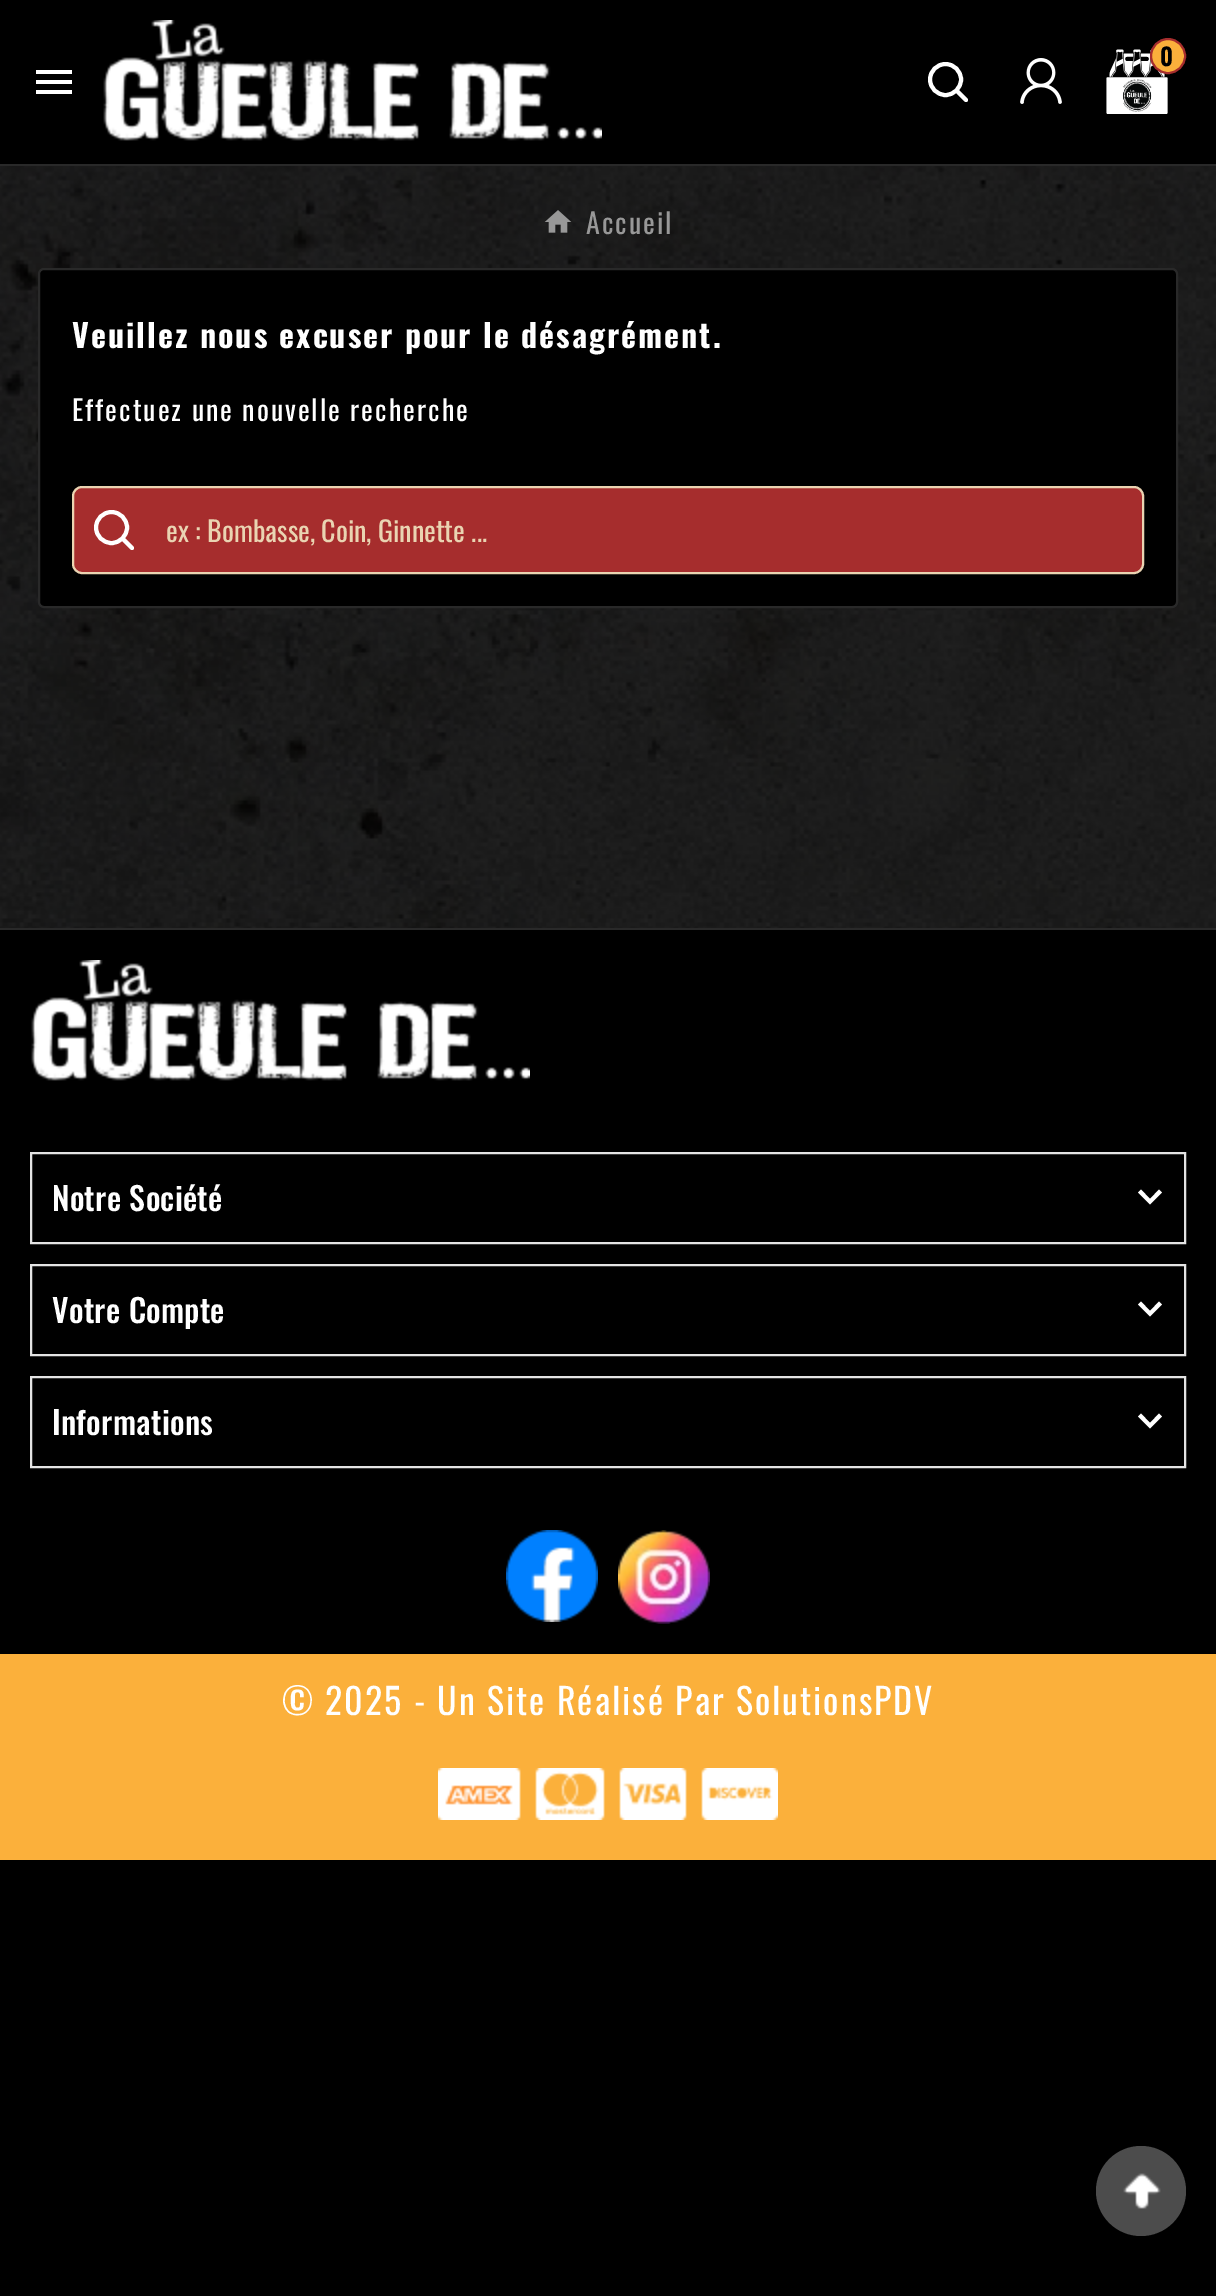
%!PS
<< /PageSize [1216 2296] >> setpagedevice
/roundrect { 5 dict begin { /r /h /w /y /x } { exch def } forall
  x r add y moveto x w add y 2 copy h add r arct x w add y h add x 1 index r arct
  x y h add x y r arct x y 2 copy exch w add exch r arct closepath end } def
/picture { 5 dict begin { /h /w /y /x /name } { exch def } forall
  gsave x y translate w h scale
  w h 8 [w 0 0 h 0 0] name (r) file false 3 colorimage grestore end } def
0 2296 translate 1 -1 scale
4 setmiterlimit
0 setgray
0 0 1216 2296 rectfill
0.161 setgray
0 164 1216 2 rectfill
(img1.rgb) 103 20 499 121 picture
1 setgray
4 setlinewidth
1 setlinecap
1 setlinejoin
newpath 966 100 moveto 957.5 91.5 lineto 945.5 95 moveto 954 95 961 88 961 79.5 curveto 961 71 954 64 945.5 64 curveto 937 64 930 71 930 79.5 curveto 930 88 937 95 945.5 95 curveto closepath stroke
(img2.rgb) 1020 58 42 46 picture
(img3.rgb) 1106 49 62 65 picture
0.984 0.69 0.231 setrgbcolor
newpath 1168 56 17 0 360 arc closepath gsave fill grestore
0.651 0.176 0.176 setrgbcolor
2 setlinewidth
0 setlinecap
0 setlinejoin
stroke
/Oswald-SemiBold [24 0 0 -24 0 0] selectfont
0 setgray
1160 66 moveto 2 0 (0) ashow
1 setgray
newpath 36 70 moveto 72 70 lineto 72 74 lineto 36 74 lineto closepath 36 84 moveto 36 80 lineto 72 80 lineto 72 84 lineto closepath 36 94 moveto 36 90 lineto 72 90 lineto 72 94 lineto closepath fill
(img4.rgb) 0 166 1216 762 picture
(img5.rgb) 544 210 28 23 picture
/Oswald-Regular [28 0 0 -28 0 0] selectfont
0.596 setgray
586 234 moveto 2 0 (Accueil) ashow
0 setgray
39 269 1138 338 5 roundrect gsave fill grestore
0.161 setgray
stroke
/Oswald-Bold [32 0 0 -32 0 0] selectfont
1 setgray
72 348 moveto 2 0 (Veuillez nous excuser pour le désagrément.) ashow
/Oswald-Regular [28 0 0 -28 0 0] selectfont
72 421 moveto 2 0 (Effectuez une nouvelle recherche) ashow
0.651 0.176 0.176 setrgbcolor
73 487 1070 86 9 roundrect gsave fill grestore
0.918 0.831 0.698 setrgbcolor
stroke
1 setgray
4 setlinewidth
1 setlinecap
1 setlinejoin
newpath 132 548 moveto 123.5 539.5 lineto 111.5 543 moveto 120 543 127 536 127 527.5 curveto 127 519 120 512 111.5 512 curveto 103 512 96 519 96 527.5 curveto 96 536 103 543 111.5 543 curveto closepath stroke
0.918 0.831 0.698 setrgbcolor
166 542 moveto (ex : Bombasse, Coin, Ginnette ...) show
0.161 setgray
0 928 1216 2 rectfill
(img6.rgb) 31 960 499 121 picture
0.894 setgray
2 setlinewidth
0 setlinecap
0 setlinejoin
31 1153 1154 90 rectstroke
/Oswald-Medium [32 0 0 -32 0 0] selectfont
1 setgray
52 1211 moveto 0.25 0 (Notre Société) ashow
newpath 1141 1189.5 moveto 1150 1199 lineto 1159 1189.5 lineto 1162 1192.5 lineto 1150 1204.5 lineto 1138 1192.5 lineto closepath fill
0.894 setgray
31 1265 1154 90 rectstroke
1 setgray
52 1323 moveto 0.25 0 (Votre Compte) ashow
newpath 1141 1301.5 moveto 1150 1311 lineto 1159 1301.5 lineto 1162 1304.5 lineto 1150 1316.5 lineto 1138 1304.5 lineto closepath fill
0.894 setgray
31 1377 1154 90 rectstroke
1 setgray
52 1435 moveto 0.25 0 (Informations) ashow
newpath 1141 1413.5 moveto 1150 1423 lineto 1159 1413.5 lineto 1162 1416.5 lineto 1150 1428.5 lineto 1138 1416.5 lineto closepath fill
(img7.rgb) 506 1530 92 92 picture
(img8.rgb) 618 1530 92 94 picture
0.298 setgray
newpath 1141 2191 45 0 360 arc closepath fill
(img9.rgb) 1123 2173 38 36 picture
0.984 0.69 0.231 setrgbcolor
0 1654 1216 206 rectfill
/Oswald-Regular [36 0 0 -36 0 0] selectfont
1 setgray
282 1715 moveto 2 0 (© 2025 - Un Site Réalisé Par SolutionsPDV) ashow
(img10.rgb) 438 1768 340 52 picture
showpage
